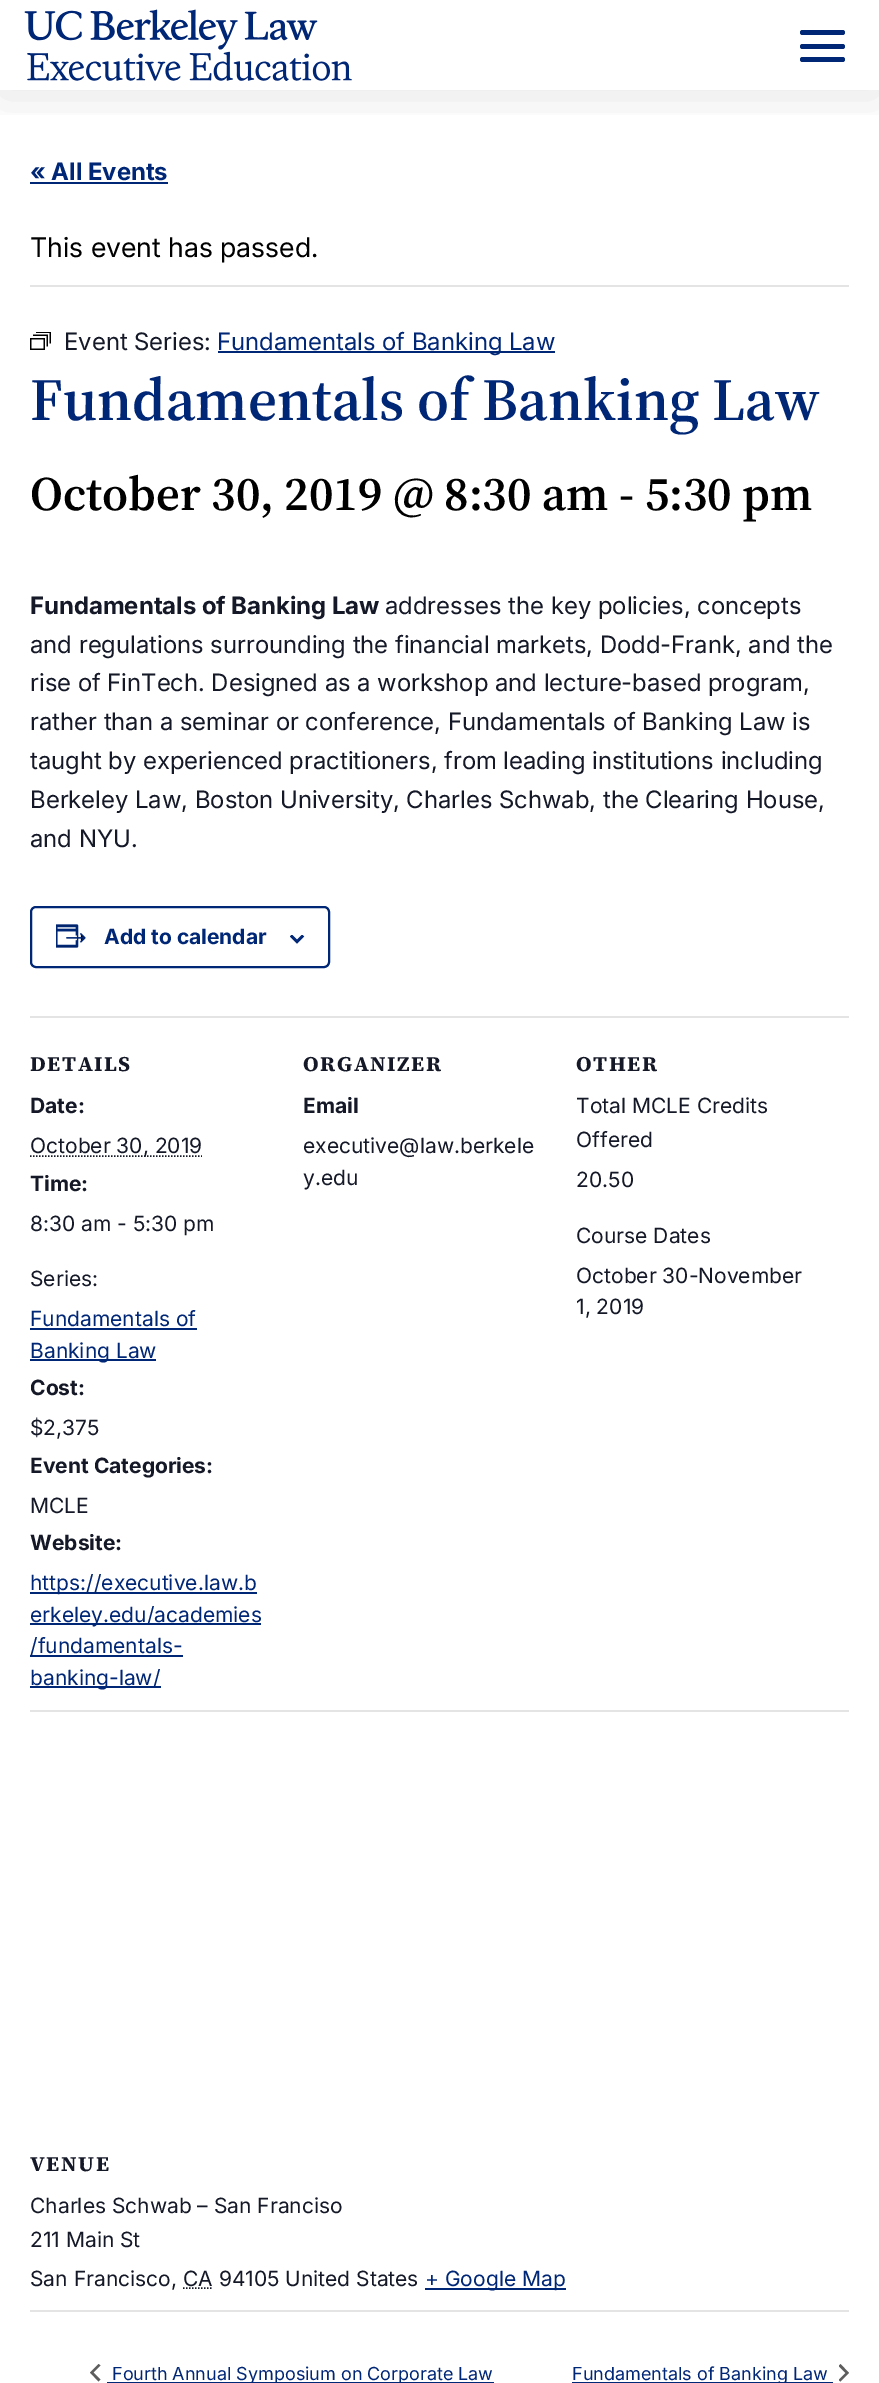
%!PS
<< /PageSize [879 2383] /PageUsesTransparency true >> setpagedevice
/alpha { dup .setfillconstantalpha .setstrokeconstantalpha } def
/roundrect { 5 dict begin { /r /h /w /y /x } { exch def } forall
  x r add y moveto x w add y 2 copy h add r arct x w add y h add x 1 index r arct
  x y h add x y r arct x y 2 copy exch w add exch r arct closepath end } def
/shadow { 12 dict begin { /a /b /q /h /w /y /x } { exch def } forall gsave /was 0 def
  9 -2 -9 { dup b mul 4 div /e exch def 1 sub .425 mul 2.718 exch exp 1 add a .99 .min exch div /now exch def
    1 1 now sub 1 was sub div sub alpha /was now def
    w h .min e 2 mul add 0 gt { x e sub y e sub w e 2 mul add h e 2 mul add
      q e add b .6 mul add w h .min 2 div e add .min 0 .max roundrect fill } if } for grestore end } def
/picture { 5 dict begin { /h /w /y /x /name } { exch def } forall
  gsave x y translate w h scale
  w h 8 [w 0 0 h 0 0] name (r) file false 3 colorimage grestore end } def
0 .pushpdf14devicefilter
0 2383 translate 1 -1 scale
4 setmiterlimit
1 setgray
0 0 879 2383 rectfill
gsave
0 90 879 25 rectclip
0.047 0.043 0.063 setrgbcolor
0 6 879 90 0 22.5 0.1 shadow
grestore
(img1.rgb) 24 9 328 72 picture
0 0.149 0.463 setrgbcolor
800 30 45 5 2.5 roundrect fill
800 44 45 5 2.5 roundrect fill
800 57 45 5 2.5 roundrect fill
/Inter-Bold [24 0 0 -24 0 0] selectfont
30 180 moveto (« All Events) show
30 182 138 2 rectfill
0.894 setgray
30 285 819 2 rectfill
/Inter-Regular [27 0 0 -27 0 0] selectfont
0 setgray
30 257 moveto (This event has passed.) show
(img2.rgb) 30 332 21 18 picture
/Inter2-Regular [24 0 0 -24 0 0] selectfont
0.078 0.094 0.153 setrgbcolor
64 350 moveto (Event Series:) show
0 0.149 0.463 setrgbcolor
218 351 337 2 rectfill
217 350 moveto (Fundamentals of Banking Law) show
/SourceSerif4-SemiBold [60 0 0 -60 0 0] selectfont
30 420 moveto (Fundamentals of Banking Law) show
/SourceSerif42-SemiBold [48 0 0 -48 0 0] selectfont
0 setgray
30 510 moveto (October 30, 2019 @ 8:30 am - 5:30 pm) show
/Inter-Bold [24 0 0 -24 0 0] selectfont
0.078 0.094 0.153 setrgbcolor
30 614 moveto (Fundamentals of Banking Law) show
/Inter2-Regular [24 0 0 -24 0 0] selectfont
385 614 moveto (addresses the key policies, concepts) show
30 653 moveto (and regulations surrounding the financial markets, Dodd-Frank, and the) show
30 691 moveto (rise of FinTech. Designed as a workshop and lecture-based program,) show
30 730 moveto (rather than a seminar or conference, Fundamentals of Banking Law is) show
30 769 moveto (taught by experienced practitioners, from leading institutions including) show
30 808 moveto (Berkeley Law, Boston University, Charles Schwab, the Clearing House,) show
30 847 moveto (and NYU.) show
0 0.149 0.463 setrgbcolor
2 setlinewidth
31 907 298 60 5 roundrect stroke
(img3.rgb) 56 924 30 24 picture
/Inter2-Bold [21 0 0 -21 0 0] selectfont
104 944 moveto (Add to calendar) show
(img4.rgb) 290 935 15 9 picture
0.894 setgray
30 1016 819 2 rectfill
/SourceSerif4-Bold [21 0 0 -21 0 0] selectfont
0.078 0.094 0.153 setrgbcolor
30 1071 moveto 1.5 0 (DETAILS) ashow
/Inter2-Bold [21 0 0 -21 0 0] selectfont
30 1113 moveto (Date:) show
1.5 setlinewidth
[1.5 1.5] 0 setdash
newpath 30 1156 moveto 202 1156 lineto stroke
/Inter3-Regular [21 0 0 -21 0 0] selectfont
30 1153 moveto (October 30, 2019) show
/Inter2-Bold [21 0 0 -21 0 0] selectfont
30 1191 moveto (Time:) show
/Inter3-Regular [21 0 0 -21 0 0] selectfont
30 1231 moveto (8:30 am - 5:30 pm) show
30 1286 moveto (Series:) show
0 0.149 0.463 setrgbcolor
30 1326 moveto (Fundamentals of) show
30 1328 167 2 rectfill
30 1359 126 2 rectfill
30 1358 moveto (Banking Law) show
/Inter2-Bold [21 0 0 -21 0 0] selectfont
0.078 0.094 0.153 setrgbcolor
30 1395 moveto (Cost:) show
/Inter3-Regular [21 0 0 -21 0 0] selectfont
30 1435 moveto ($2,375) show
/Inter2-Bold [21 0 0 -21 0 0] selectfont
30 1473 moveto (Event Categories:) show
/Inter3-Regular [21 0 0 -21 0 0] selectfont
30 1513 moveto (MCLE) show
/Inter2-Bold [21 0 0 -21 0 0] selectfont
30 1550 moveto (Website:) show
0 0.149 0.463 setrgbcolor
30 1592 227 2 rectfill
/Inter3-Regular [21 0 0 -21 0 0] selectfont
30 1590 moveto (https://executive.law.b) show
30 1623 231 2 rectfill
30 1622 moveto (erkeley.edu/academies) show
30 1655 153 2 rectfill
30 1653 moveto (/fundamentals-) show
30 1686 131 2 rectfill
30 1685 moveto (banking-law/) show
/SourceSerif4-Bold [21 0 0 -21 0 0] selectfont
0.078 0.094 0.153 setrgbcolor
303 1071 moveto 1.5 0 (ORGANIZER) ashow
/Inter2-Bold [21 0 0 -21 0 0] selectfont
303 1113 moveto (Email) show
/Inter3-Regular [21 0 0 -21 0 0] selectfont
303 1153 moveto (executive@law.berkele) show
303 1185 moveto (y.edu) show
/SourceSerif4-Bold [21 0 0 -21 0 0] selectfont
576 1071 moveto 1.5 0 (OTHER) ashow
/Inter3-Regular [21 0 0 -21 0 0] selectfont
576 1113 moveto (Total MCLE Credits) show
576 1147 moveto (Offered) show
576 1187 moveto (20.50) show
576 1243 moveto (Course Dates) show
576 1283 moveto (October 30-November) show
576 1314 moveto (1, 2019) show
0.894 setgray
30 1710 819 2 rectfill
/SourceSerif4-Bold [21 0 0 -21 0 0] selectfont
0.078 0.094 0.153 setrgbcolor
30 2171 moveto 1.5 0 (VENUE) ashow
/Inter3-Regular [21 0 0 -21 0 0] selectfont
30 2213 moveto (Charles Schwab – San Franciso) show
30 2247 moveto (211 Main St) show
30 2286 moveto (San Francisco, CA 94105 United States) show
newpath 183 2288 moveto 212.5 2288 lineto stroke
0 0.149 0.463 setrgbcolor
425 2288 141 2 rectfill
425 2286 moveto (+ Google Map) show
0.894 setgray
30 2310 819 2 rectfill
0.365 setgray
newpath 100.5 2379.5 moveto 98.5 2381.5 lineto 90 2372.5 lineto 98.5 2364 lineto 100.5 2365.5 lineto 93.5 2372.5 lineto closepath fill
0 0.149 0.463 setrgbcolor
107 2382 387 1 rectfill
/Inter3-Regular [18 0 0 -18 0 0] selectfont
112 2380 moveto (Fourth Annual Symposium on Corporate Law) show
572 2382 261 1 rectfill
572 2380 moveto (Fundamentals of Banking Law) show
gsave
839 2364 10 18 rectclip
0.365 setgray
newpath 838.5 2366 moveto 840.5 2364 lineto 849 2373 lineto 840.5 2381.5 lineto 838.5 2380 lineto 845.5 2373 lineto closepath fill
grestore
.poppdf14devicefilter showpage
